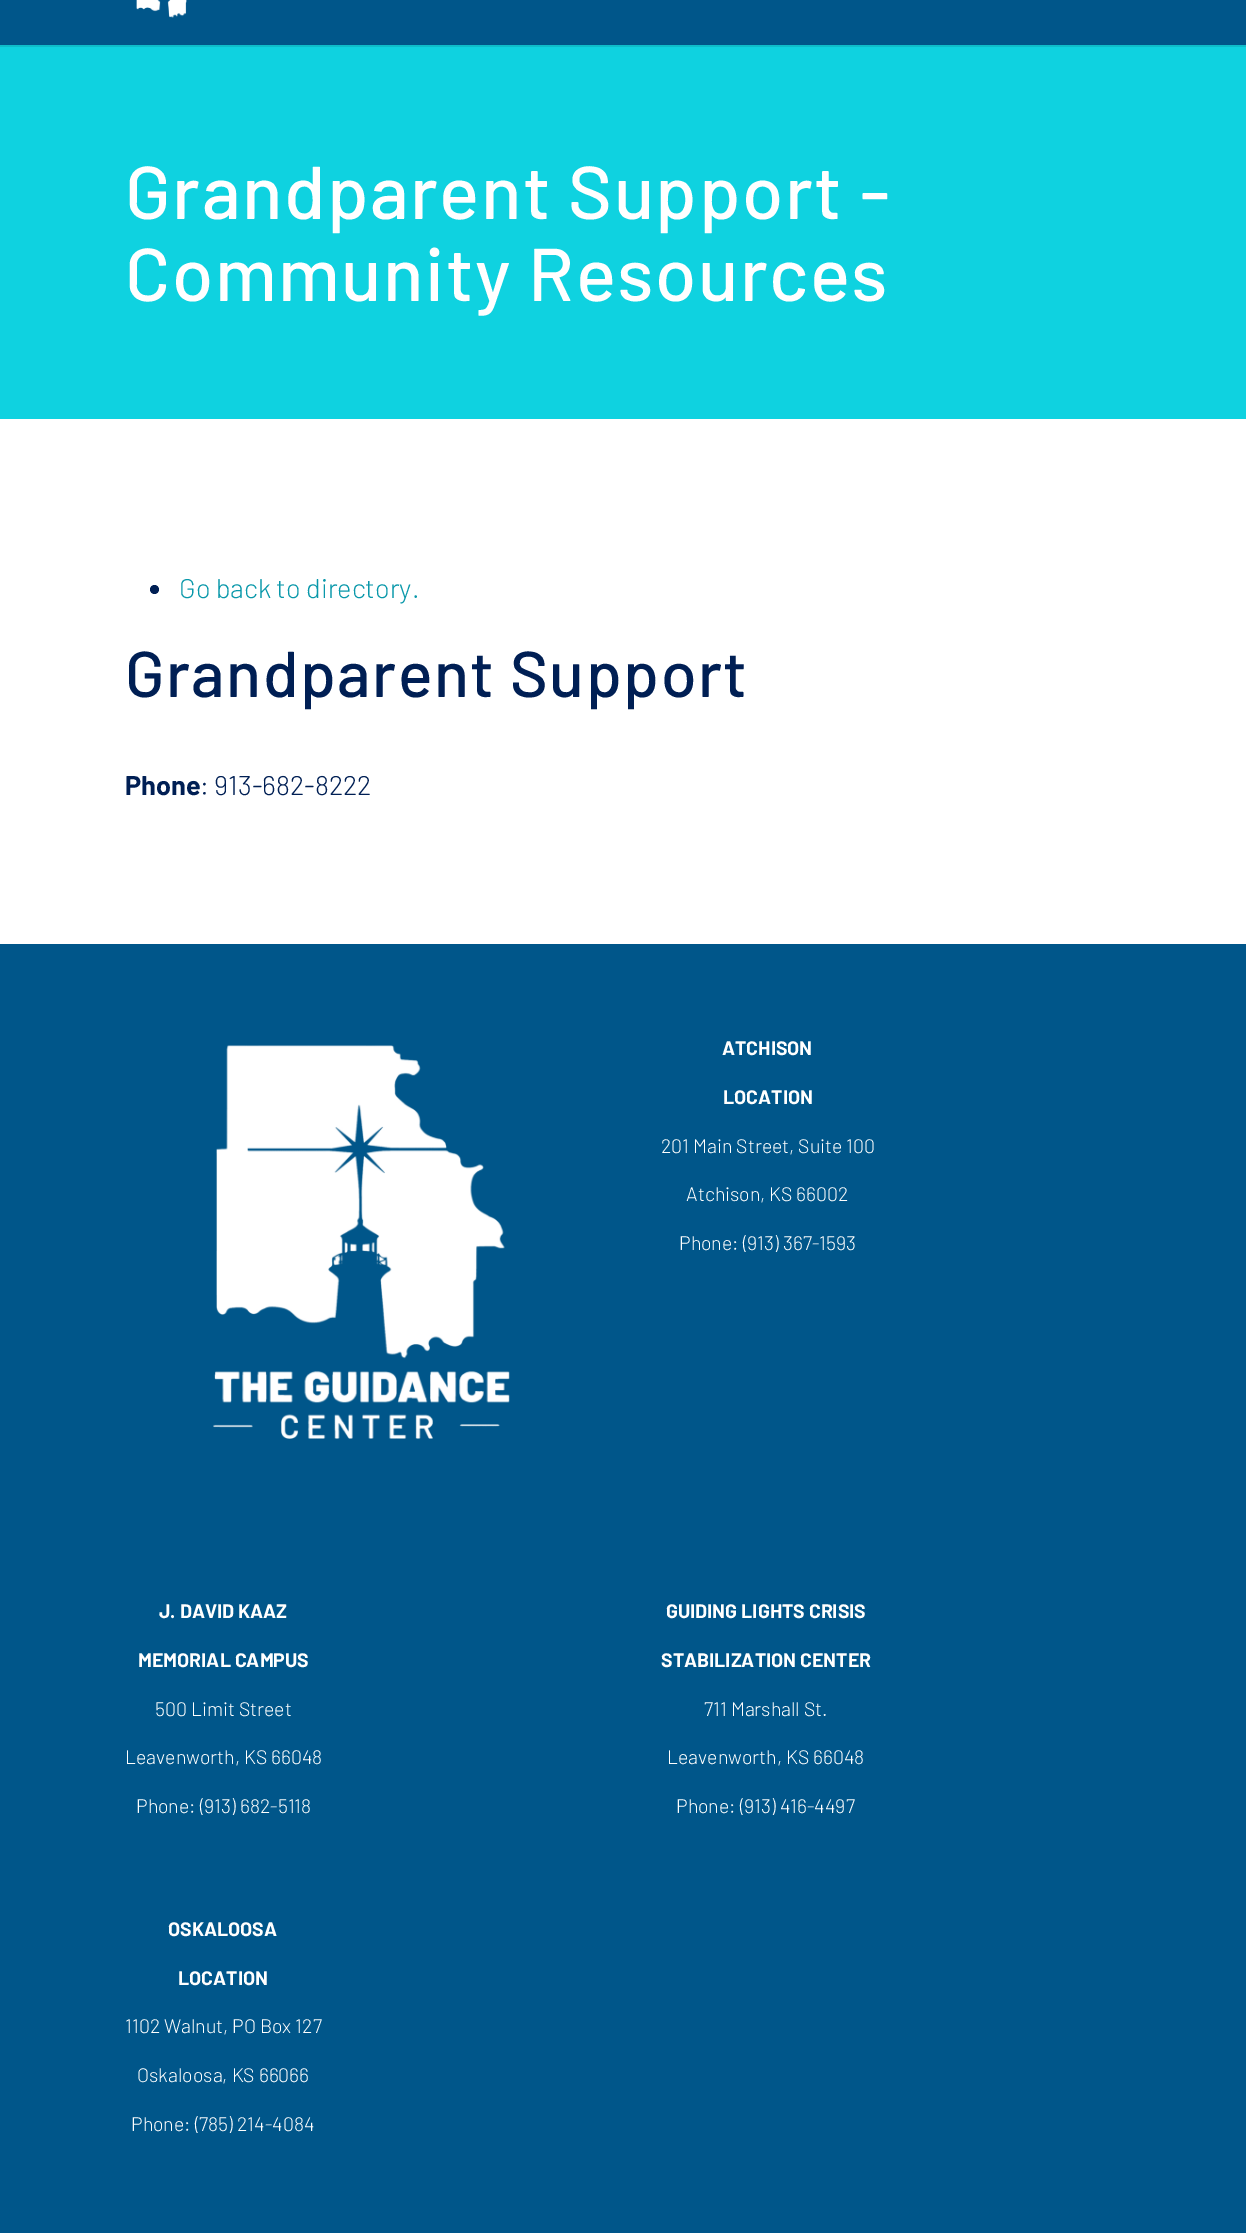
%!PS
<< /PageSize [1246 2233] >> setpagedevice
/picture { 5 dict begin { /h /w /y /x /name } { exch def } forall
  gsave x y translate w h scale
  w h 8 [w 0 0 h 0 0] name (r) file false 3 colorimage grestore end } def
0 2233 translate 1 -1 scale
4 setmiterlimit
1 setgray
0 0 1246 2233 rectfill
0.055 0.741 0.792 setrgbcolor
newpath 0 45 moveto 0 47 lineto 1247 47 lineto 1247 -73 lineto 1246 -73 lineto 1246 45 lineto closepath fill
0 0.337 0.541 setrgbcolor
0 0 1246 45 rectfill
(img1.rgb) 136 0 51 18 picture
0.059 0.824 0.878 setrgbcolor
0 47 1246 372 rectfill
/Barlow-Medium [74.75 0 0 -74.75 0 0] selectfont
1 setgray
125 219 moveto 1.5 0 (Grandparent Support -) ashow
125 301 moveto 1.5 0 (Community Resources) ashow
0 0.122 0.329 setrgbcolor
newpath 154.5 589.5 4.5 0 360 arc closepath fill
/Barlow-Light [27 0 0 -27 0 0] selectfont
0.035 0.596 0.667 setrgbcolor
179 598 moveto (Go back to directory.) show
/Barlow-Medium [64.5 0 0 -64.5 0 0] selectfont
0 0.122 0.329 setrgbcolor
125 697 moveto 1.5 0 (Grandparent Support) ashow
/Barlow-Bold [27 0 0 -27 0 0] selectfont
125 795 moveto (Phone) show
/Barlow-Light [27 0 0 -27 0 0] selectfont
200 795 moveto (: 913-682-8222) show
0 0.337 0.541 setrgbcolor
0 944 1246 1289 rectfill
(img2.rgb) 213 1045 297 394 picture
/Barlow-Bold [19.5 0 0 -19.5 0 0] selectfont
1 setgray
722 1055 moveto (ATCHISON) show
723 1104 moveto (LOCATION) show
/Barlow-Light [19.5 0 0 -19.5 0 0] selectfont
661 1153 moveto (201 Main Street, Suite 100) show
686 1201 moveto (Atchison, KS 66002) show
679 1250 moveto (Phone: \(913\) 367-1593) show
/Barlow-Bold [19.5 0 0 -19.5 0 0] selectfont
159 1618 moveto (J. DAVID KAAZ) show
138 1667 moveto (MEMORIAL CAMPUS) show
/Barlow-Light [19.5 0 0 -19.5 0 0] selectfont
155 1716 moveto (500 Limit Street) show
125 1764 moveto (Leavenworth, KS 66048) show
136 1813 moveto (Phone: \(913\) 682-5118) show
/Barlow-Bold [19.5 0 0 -19.5 0 0] selectfont
666 1618 moveto (GUIDING LIGHTS CRISIS) show
661 1667 moveto (STABILIZATION CENTER) show
/Barlow-Light [19.5 0 0 -19.5 0 0] selectfont
704 1716 moveto (711 Marshall St.) show
667 1764 moveto (Leavenworth, KS 66048) show
676 1813 moveto (Phone: \(913\) 416-4497) show
/Barlow-Bold [19.5 0 0 -19.5 0 0] selectfont
168 1936 moveto (OSKALOOSA) show
178 1985 moveto (LOCATION) show
/Barlow-Light [19.5 0 0 -19.5 0 0] selectfont
125 2033 moveto (1102 Walnut, PO Box 127) show
137 2082 moveto (Oskaloosa, KS 66066) show
131 2131 moveto (Phone: \(785\) 214-4084) show
showpage
